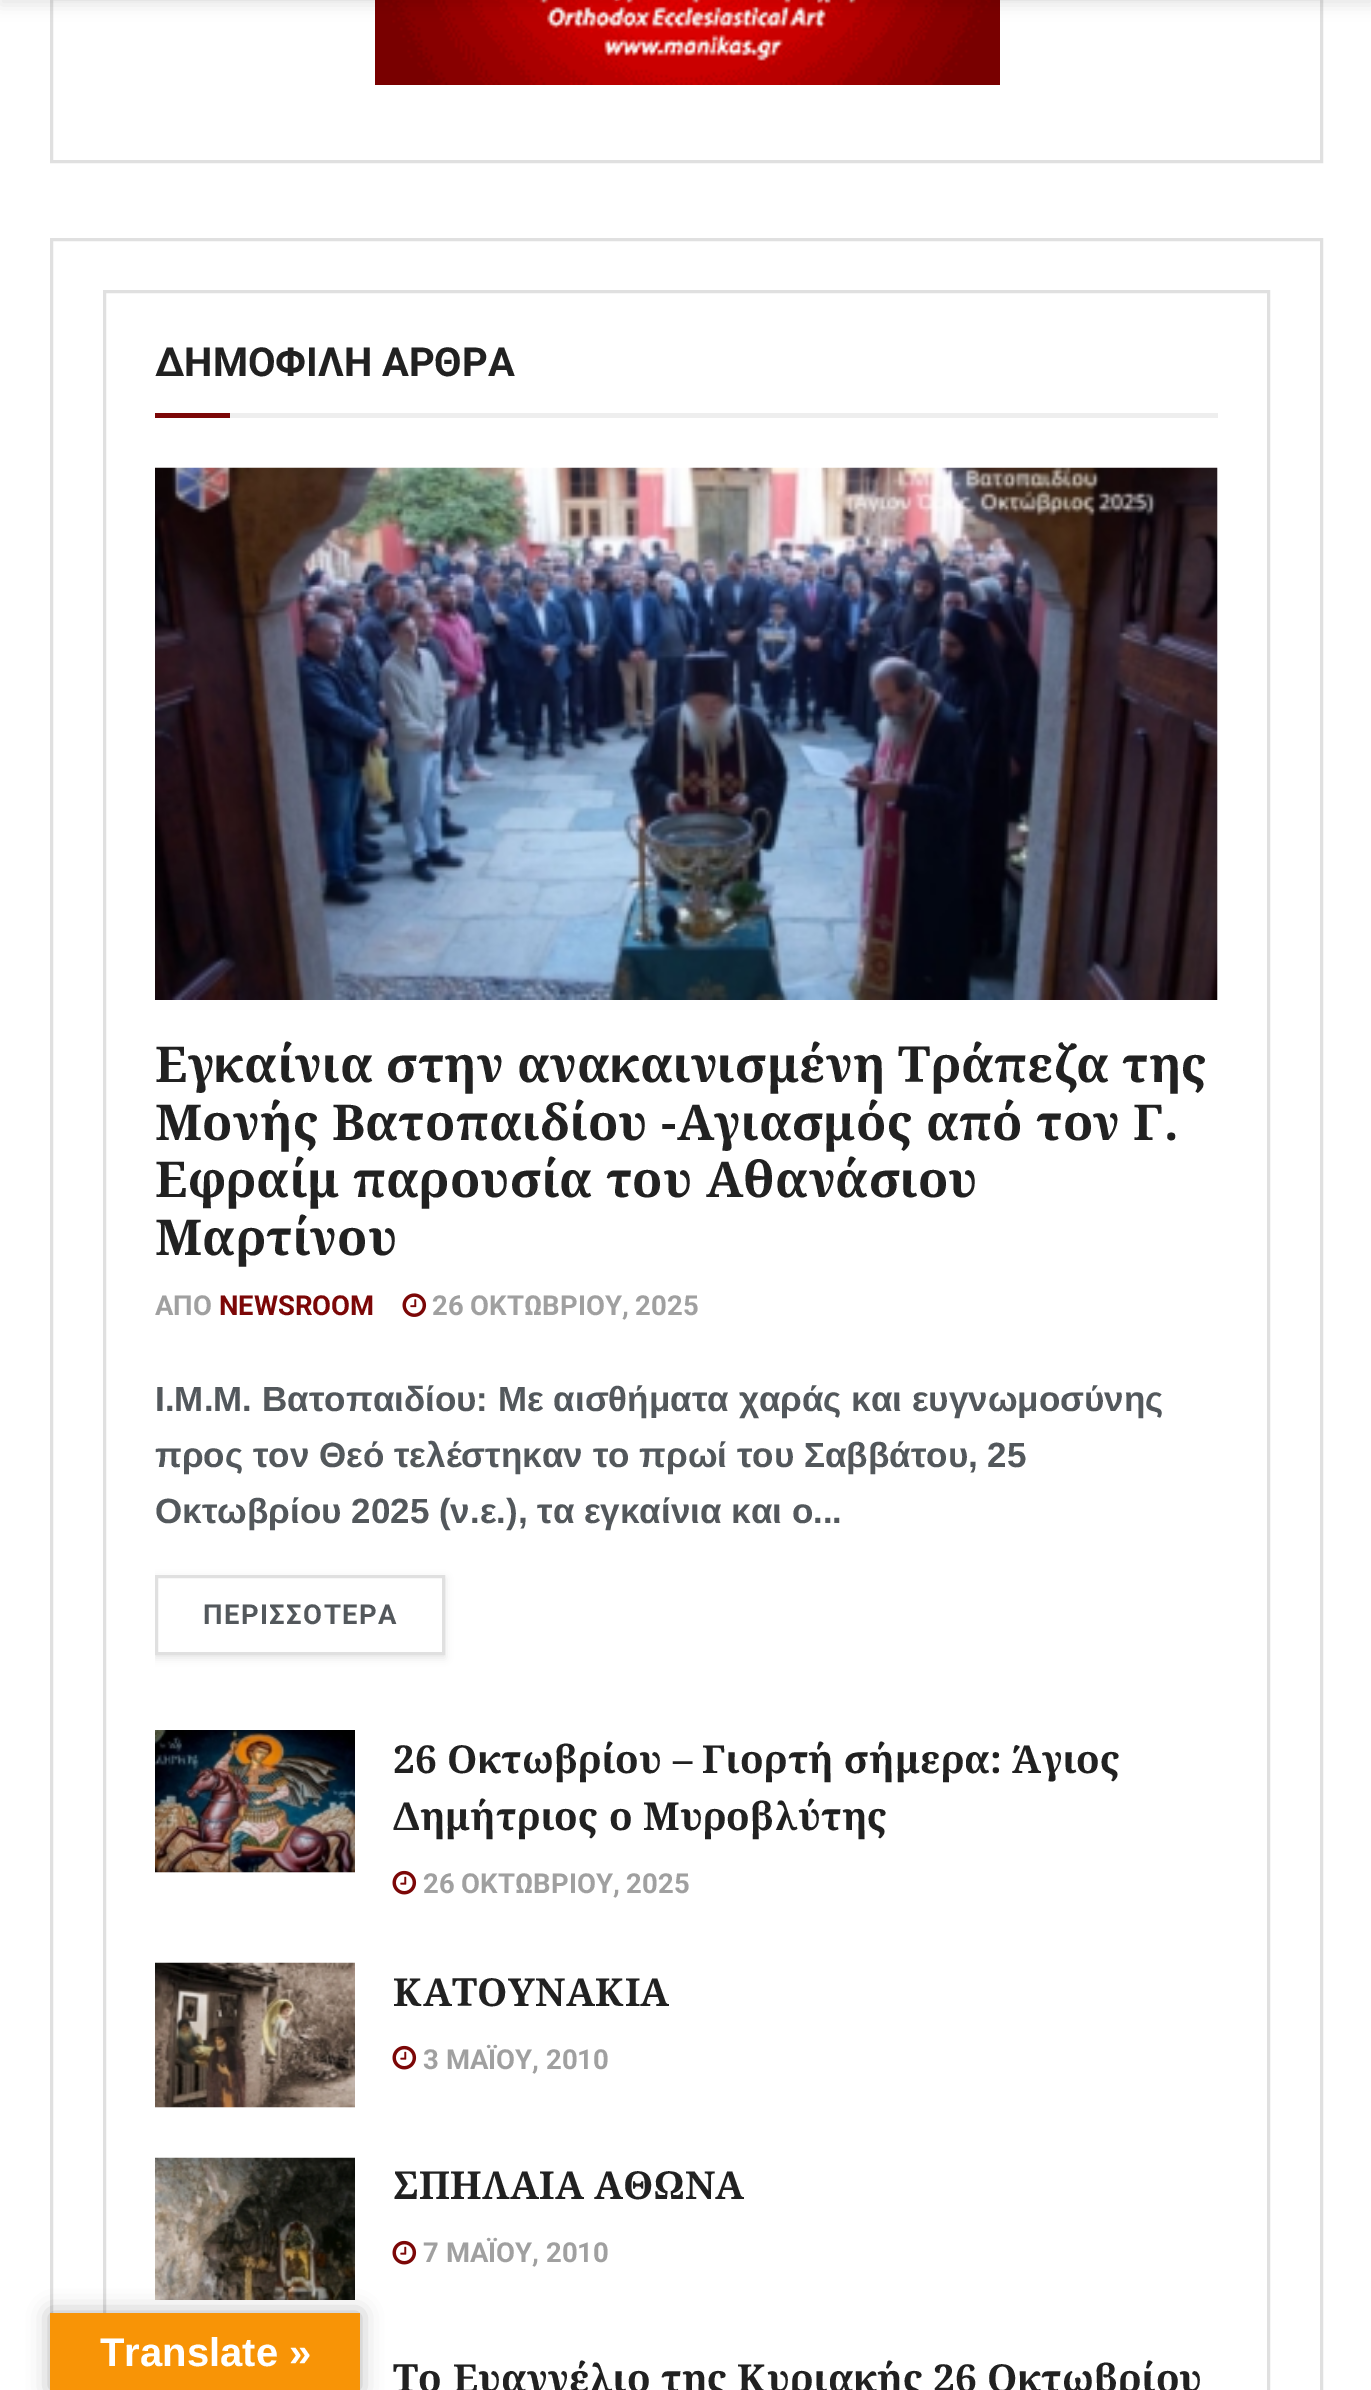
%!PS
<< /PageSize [1371 2390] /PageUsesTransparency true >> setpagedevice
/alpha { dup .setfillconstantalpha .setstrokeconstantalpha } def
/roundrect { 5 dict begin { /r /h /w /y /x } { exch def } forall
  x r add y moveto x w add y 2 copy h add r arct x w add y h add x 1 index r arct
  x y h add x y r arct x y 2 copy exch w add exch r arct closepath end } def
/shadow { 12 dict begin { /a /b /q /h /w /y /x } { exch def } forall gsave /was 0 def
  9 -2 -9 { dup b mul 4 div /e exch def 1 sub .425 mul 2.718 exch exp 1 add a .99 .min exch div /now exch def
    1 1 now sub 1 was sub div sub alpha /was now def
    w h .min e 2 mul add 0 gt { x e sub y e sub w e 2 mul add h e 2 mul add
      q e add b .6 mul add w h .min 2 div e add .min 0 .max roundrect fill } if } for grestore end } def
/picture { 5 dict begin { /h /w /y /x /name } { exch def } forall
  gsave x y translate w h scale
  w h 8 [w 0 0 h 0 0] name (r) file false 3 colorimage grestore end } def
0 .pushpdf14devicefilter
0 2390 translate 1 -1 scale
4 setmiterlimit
1 setgray
0 0 1371 2390 rectfill
0.878 setgray
3 setlinewidth
51.5 -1.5 1270 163 rectstroke
(img1.rgb) 375 0 625 85 picture
0 setgray
0 -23 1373 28 0 7.5 0.1 shadow
0.878 setgray
51.5 239.5 1270 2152 rectstroke
104.5 291.5 1164 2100 rectstroke
0.933 setgray
230 413 988 5 rectfill
/Roboto-Bold [40 0 0 -40 0 0] selectfont
0.129 setgray
155 376 moveto (ΔΗΜΟΦΙΛΗ ΑΡΘΡΑ) show
0.486 0.027 0.027 setrgbcolor
155 413 75 5 rectfill
0.969 setgray
1217 468 1 532 rectfill
(img2.rgb) 155 467 1063 533 picture
/NotoSerif-Bold [49.5 0 0 -49.5 0 0] selectfont
0.129 setgray
155 1082 moveto 0.25 0 (Εγκαίνια στην ανακαινισμένη Τράπεζα της) ashow
155 1140 moveto 0.25 0 (Μονής Βατοπαιδίου -Αγιασμός από τον Γ.) ashow
155 1197 moveto 0.25 0 (Εφραίμ παρουσία του Αθανάσιου) ashow
155 1255 moveto 0.25 0 (Μαρτίνου) ashow
/Roboto-Bold [27.5 0 0 -27.5 0 0] selectfont
0.627 setgray
155 1315 moveto (ΑΠΟ) show
0.486 0.027 0.027 setrgbcolor
219 1315 moveto (NEWSROOM) show
(img3.rgb) 402 1293 25 24 picture
0.627 setgray
432 1315 moveto (26 ΟΚΤΩΒΡΙΟΥ, 2025) show
/LiberationSans-Bold [35 0 0 -35 0 0] selectfont
0.325 0.345 0.361 setrgbcolor
155 1411 moveto (Ι.Μ.Μ. Βατοπαιδίου: Με αισθήματα χαράς και ευγνωμοσύνης) show
155 1467 moveto (προς τον Θεό τελέστηκαν το πρωί του Σαββάτου, 25) show
155 1523 moveto (Οκτωβρίου 2025 \(ν.ε.\), τα εγκαίνια και ο...) show
gsave
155 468 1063 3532 rectclip
newpath 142 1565 moveto 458 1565 lineto 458 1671 lineto 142 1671 lineto closepath 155 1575 moveto 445 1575 lineto 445 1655 lineto 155 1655 lineto closepath eoclip newpath
0 setgray
155 1578 290 80 0 4 0.1 shadow
grestore
0.878 setgray
156.5 1576.5 287 77 rectstroke
/Roboto-Bold [27.5 0 0 -27.5 0 0] selectfont
0.325 0.345 0.361 setrgbcolor
203 1624 moveto 1.4 0 (ΠΕΡΙΣΣΟΤΕΡΑ) ashow
0.969 setgray
155 1872 200 1 rectfill
(img4.rgb) 155 1730 200 143 picture
/NotoSerif-Bold [38.5 0 0 -38.5 0 0] selectfont
0.129 setgray
393 1773 moveto 0.25 0 (26 Οκτωβρίου – Γιορτή σήμερα: Άγιος) ashow
393 1830 moveto 0.25 0 (Δημήτριος ο Μυροβλύτης) ashow
(img5.rgb) 392 1870 25 25 picture
/Roboto-Bold [27.5 0 0 -27.5 0 0] selectfont
0.627 setgray
423 1893 moveto (26 ΟΚΤΩΒΡΙΟΥ, 2025) show
0.969 setgray
155 2107 200 1 rectfill
(img6.rgb) 155 1962 200 146 picture
/NotoSerif-Bold [38.5 0 0 -38.5 0 0] selectfont
0.129 setgray
393 2006 moveto 0.25 0 (ΚΑΤΟΥΝΑΚΙΑ) ashow
(img5.rgb) 392 2045 25 25 picture
/Roboto-Bold [27.5 0 0 -27.5 0 0] selectfont
0.627 setgray
423 2069 moveto (3 ΜΑΪΟΥ, 2010) show
(img7.rgb) 155 2157 200 143 picture
/NotoSerif-Bold [38.5 0 0 -38.5 0 0] selectfont
0.129 setgray
393 2199 moveto 0.25 0 (ΣΠΗΛΑΙΑ ΑΘΩΝΑ) ashow
(img5.rgb) 392 2240 25 25 picture
/Roboto-Bold [27.5 0 0 -27.5 0 0] selectfont
0.627 setgray
423 2262 moveto (7 ΜΑΪΟΥ, 2010) show
/NotoSerif-Bold [38.5 0 0 -38.5 0 0] selectfont
0.129 setgray
393 2392 moveto 0.25 0 (Το Ευαγγέλιο της Κυριακής 26 Οκτωβρίου) ashow
0 setgray
50 2313 310 77 0 11 0.3 shadow
0.973 0.58 0.024 setrgbcolor
50 2313 310 77 rectfill
/LiberationSans-Bold [40 0 0 -40 0 0] selectfont
1 setgray
100 2366 moveto (Translate ») show
.poppdf14devicefilter showpage
